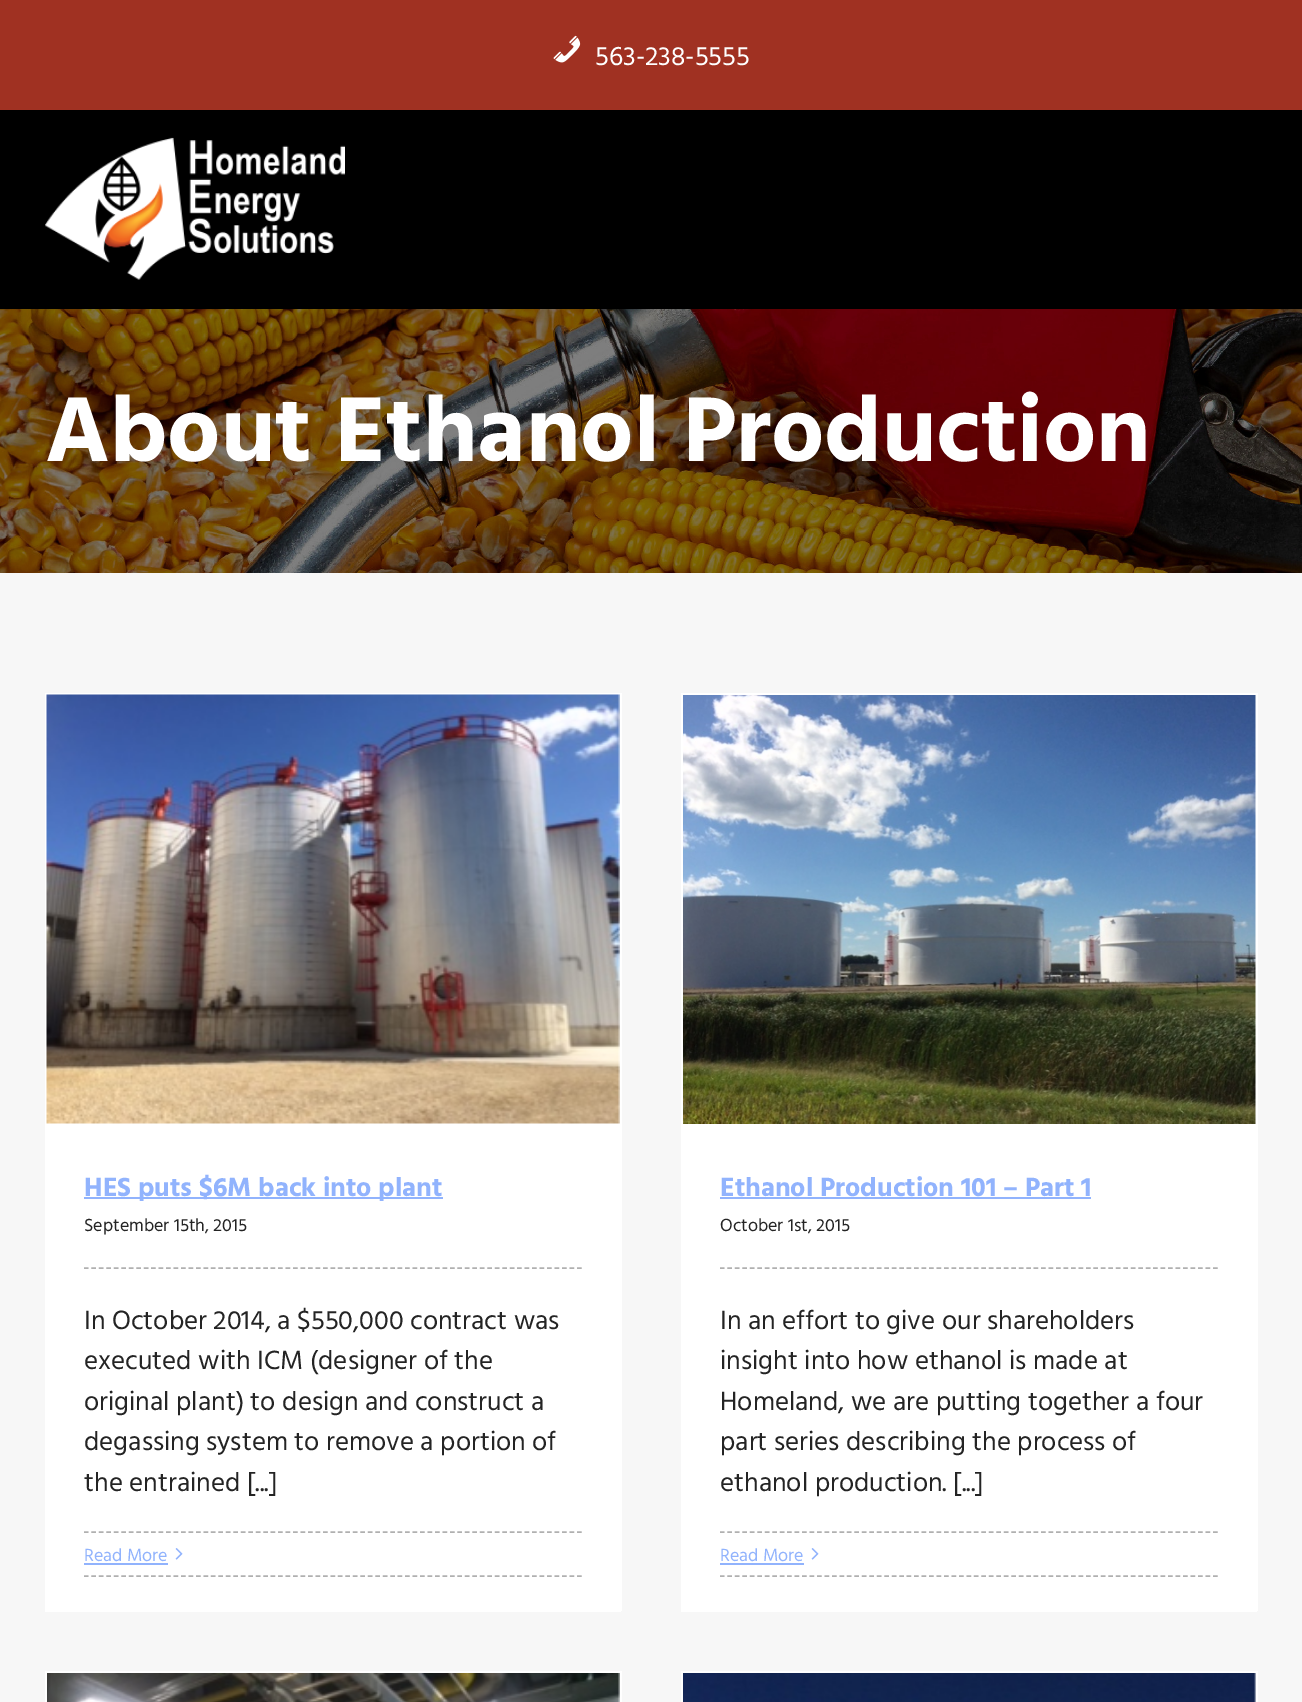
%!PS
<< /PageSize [1302 1702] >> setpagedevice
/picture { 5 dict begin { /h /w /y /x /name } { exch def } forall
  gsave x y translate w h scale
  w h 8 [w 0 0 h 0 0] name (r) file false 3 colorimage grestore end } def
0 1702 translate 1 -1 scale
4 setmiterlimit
1 setgray
0 0 1302 1702 rectfill
0.627 0.192 0.133 setrgbcolor
0 0 1302 110 rectfill
(img1.rgb) 553 35 28 28 picture
/HindVadodara-Regular [27 0 0 -27 0 0] selectfont
1 setgray
595 65 moveto (563-238-5555) show
0 setgray
0 110 1302 199 rectfill
(img2.rgb) 45 137 300 143 picture
(img3.rgb) 0 309 1302 264 picture
/HindVadodara-Bold [94.1 0 0 -94.1 0 0] selectfont
1 setgray
45 461 moveto (About Ethanol Production) show
0.969 setgray
0 573 1302 1129 rectfill
1 setgray
47 695 573 912 rectfill
45 693 576 2 rectfill
620 693 2 918 rectfill
45 1607 576 5 rectfill
45 693 2 918 rectfill
(img4.rgb) 46 694 574 430 picture
0.569 0.702 0.992 setrgbcolor
84 1197 359 2 rectfill
/HindVadodara-Bold [27 0 0 -27 0 0] selectfont
84 1196 moveto (HES puts $6M back into plant) show
/HindVadodara-Regular [18 0 0 -18 0 0] selectfont
0.141 setgray
84 1231 moveto (September 15th, 2015) show
0.69 setgray
1.5 setlinewidth
[4.5 2.97] 0 setdash
newpath 84 1268 moveto 582 1268 lineto stroke
/HindVadodara-Regular [27 0 0 -27 0 0] selectfont
0.141 setgray
84 1329 moveto (In October 2014, a $550,000 contract was) show
84 1369 moveto (executed with ICM \(designer of the) show
84 1410 moveto (original plant\) to design and construct a) show
84 1450 moveto (degassing system to remove a portion of) show
84 1491 moveto (the entrained [...]) show
0.69 setgray
newpath 84 1532 moveto 582 1532 lineto stroke
newpath 84 1576 moveto 582 1576 lineto stroke
/HindVadodara-Regular [18 0 0 -18 0 0] selectfont
0.569 0.702 0.992 setrgbcolor
84 1561 moveto (Read More) show
84 1563 84 2 rectfill
(img5.rgb) 175 1548 8 12 picture
1 setgray
683 695 573 912 rectfill
681 693 576 2 rectfill
1256 693 2 918 rectfill
681 1607 576 5 rectfill
681 693 2 918 rectfill
(img6.rgb) 683 695 573 429 picture
/HindVadodara-Bold [27 0 0 -27 0 0] selectfont
0.569 0.702 0.992 setrgbcolor
720 1196 moveto (Ethanol Production 101 – Part 1) show
720 1197 371 2 rectfill
/HindVadodara-Regular [18 0 0 -18 0 0] selectfont
0.141 setgray
720 1231 moveto (October 1st, 2015) show
0.69 setgray
newpath 720 1268 moveto 1218 1268 lineto stroke
/HindVadodara-Regular [27 0 0 -27 0 0] selectfont
0.141 setgray
720 1329 moveto (In an effort to give our shareholders) show
720 1369 moveto (insight into how ethanol is made at) show
720 1410 moveto (Homeland, we are putting together a four) show
720 1450 moveto (part series describing the process of) show
720 1491 moveto (ethanol production. [...]) show
0.69 setgray
newpath 720 1532 moveto 1218 1532 lineto stroke
newpath 720 1576 moveto 1218 1576 lineto stroke
/HindVadodara-Regular [18 0 0 -18 0 0] selectfont
0.569 0.702 0.992 setrgbcolor
720 1561 moveto (Read More) show
720 1563 84 2 rectfill
(img5.rgb) 811 1548 8 12 picture
1 setgray
618 1673 2 29 rectfill
45 1671 576 2 rectfill
620 1671 2 31 rectfill
45 1671 2 31 rectfill
(img7.rgb) 47 1673 573 29 picture
1254 1673 2 29 rectfill
681 1671 576 2 rectfill
1256 1671 2 31 rectfill
681 1671 2 31 rectfill
(img8.rgb) 683 1673 573 29 picture
showpage
